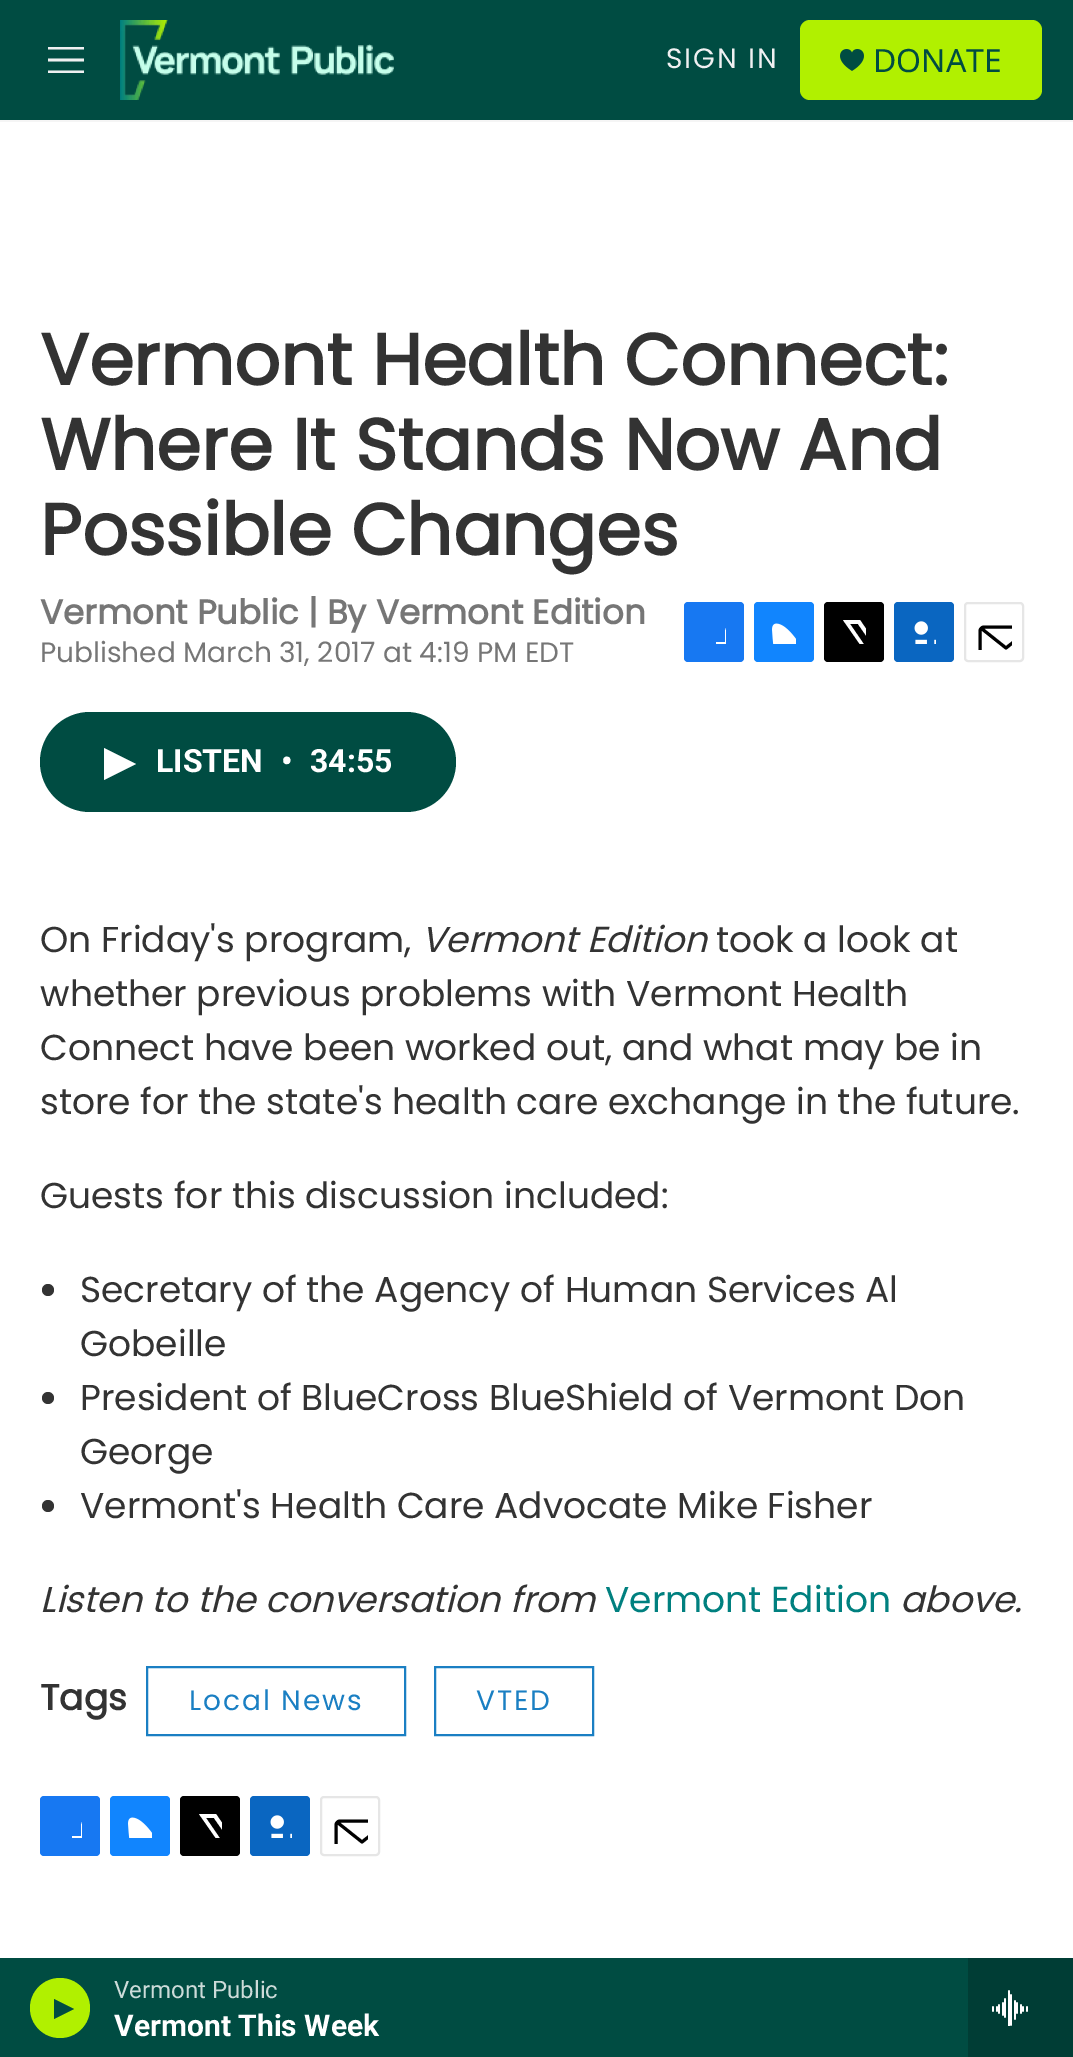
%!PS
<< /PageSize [1073 2057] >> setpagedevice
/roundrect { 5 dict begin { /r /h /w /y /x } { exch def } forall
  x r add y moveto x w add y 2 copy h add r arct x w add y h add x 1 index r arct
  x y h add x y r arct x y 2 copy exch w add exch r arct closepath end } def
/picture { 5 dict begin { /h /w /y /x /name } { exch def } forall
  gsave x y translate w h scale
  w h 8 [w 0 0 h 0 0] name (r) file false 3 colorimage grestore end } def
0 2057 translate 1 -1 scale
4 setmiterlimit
1 setgray
0 0 1073 2057 rectfill
0 0.298 0.259 setrgbcolor
0 0 1073 120 rectfill
0.961 setgray
0 120 1073 2 rectfill
0.937 0.941 0.945 setrgbcolor
newpath 48 61.5 moveto 48 58.5 lineto 84 58.5 lineto 84 61.5 lineto closepath 48 49.5 moveto 48 47 lineto 84 47 lineto 84 49.5 lineto closepath 48 73 moveto 48 70.5 lineto 84 70.5 lineto 84 73 lineto closepath eofill
(img1.rgb) 120 20 274 80 picture
/Poppins-Regular [28 0 0 -28 0 0] selectfont
666 68 moveto 2 0 (SIGN IN) ashow
0.694 0.941 0 setrgbcolor
800 20 242 80 10 roundrect fill
(img2.rgb) 840 49 24 22 picture
/NotoSans-Regular [32 0 0 -32 0 0] selectfont
0 0.298 0.259 setrgbcolor
873 72 moveto (DONATE) show
0 1958 968 99 rectfill
0.694 0.941 0 setrgbcolor
newpath 60 2008 30 0 360 arc closepath fill
0 0.298 0.259 setrgbcolor
newpath 54 1999 moveto 74 2009 lineto 54 2019 lineto closepath fill
/Roboto-Regular [24 0 0 -24 0 0] selectfont
0.8 0.859 0.851 setrgbcolor
114 1998 moveto (Vermont Public) show
/Roboto-Bold [30 0 0 -30 0 0] selectfont
1 setgray
114 2036 moveto (Vermont This Week) show
0 0.239 0.208 setrgbcolor
968 1958 105 99 rectfill
(img3.rgb) 992 1990 36 36 picture
/Poppins-Bold [72 0 0 -72 0 0] selectfont
0.2 setgray
40 385 moveto (Vermont Health Connect:) show
40 470 moveto (Where It Stands Now And) show
40 555 moveto (Possible Changes) show
/Poppins-Bold [34 0 0 -34 0 0] selectfont
0.463 setgray
40 624 moveto (Vermont Public | By Vermont Edition) show
/Poppins-Regular [28 0 0 -28 0 0] selectfont
40 662 moveto (Published March 31, 2017 at 4:19 PM EDT) show
0.09 0.471 0.949 setrgbcolor
684 602 60 60 4 roundrect fill
gsave
702 620 24 24 rectclip
1 setgray
newpath 735 662 moveto 725 662 lineto 725 652 lineto 716 652 lineto 716 642 lineto 725 642 lineto 725 631 lineto 727 622 736 620 744 621 curveto 744 630 lineto 733 630 735 633 735 642 curveto 744 642 lineto 744 647 lineto 743 652 lineto 735 652 lineto closepath fill
grestore
0.067 0.522 0.996 setrgbcolor
754 602 60 60 4 roundrect fill
(img4.rgb) 772 623 24 21 picture
0 setgray
824 602 60 60 4 roundrect fill
gsave
842 620 24 24 rectclip
1 setgray
newpath 878 645 moveto 884 654 lineto 884 656 885 659 883 660 curveto 858 624 lineto 850 624 lineto 876 662 lineto 871 662 lineto 868 657 lineto 864 662 lineto 858 662 lineto 866 653 lineto 843 620 lineto 860 620 lineto 875 642 lineto 884 632 lineto 884 638 lineto closepath fill
grestore
0.039 0.4 0.757 setrgbcolor
894 602 60 60 4 roundrect fill
(img5.rgb) 914 621 22 23 picture
0.902 setgray
2 setlinewidth
965 603 58 58 3 roundrect stroke
gsave
976 614 36 36 rectclip
0 setgray
3 setlinewidth
1 setlinecap
1 setlinejoin
newpath 1032 658 moveto 1032 660 1030 661.5 1028 661.5 curveto 984 661.5 lineto 982 661.5 980 660 980 658 curveto 980 631 lineto 980 629 982 627 984 627 curveto 1028 627 lineto 1030 627 1032 629 1032 631 curveto closepath 1030.5 628.5 moveto 1006 648 lineto 981.5 628.5 lineto stroke
grestore
0 0.298 0.259 setrgbcolor
40 712 416 100 50 roundrect fill
1 setgray
newpath 104 748 moveto 136 764 lineto 104 780 lineto closepath fill
/Roboto-Bold [32 0 0 -32 0 0] selectfont
156 772 moveto (LISTEN) show
281 772 moveto (•) show
310 772 moveto (34:55) show
/Poppins-Regular [36 0 0 -36 0 0] selectfont
0.2 setgray
40 952 moveto (On Friday's program,) show
/Poppins-Italic [36 0 0 -36 0 0] selectfont
421 952 moveto (Vermont Edition) show
/Poppins-Regular [36 0 0 -36 0 0] selectfont
716 952 moveto (took a look at) show
40 1006 moveto (whether previous problems with Vermont Health) show
40 1060 moveto (Connect have been worked out, and what may be in) show
40 1114 moveto (store for the state's health care exchange in the future.) show
40 1208 moveto (Guests for this discussion included:) show
newpath 48 1290 6 0 360 arc closepath fill
80 1302 moveto (Secretary of the Agency of Human Services Al) show
80 1356 moveto (Gobeille) show
newpath 48 1398 6 0 360 arc closepath fill
80 1410 moveto (President of BlueCross BlueShield of Vermont Don) show
80 1464 moveto (George) show
newpath 48 1506 6 0 360 arc closepath fill
80 1518 moveto (Vermont's Health Care Advocate Mike Fisher) show
/Poppins-Italic [36 0 0 -36 0 0] selectfont
40 1612 moveto (Listen to the conversation from) show
/Poppins-Regular [36 0 0 -36 0 0] selectfont
0 0.502 0.498 setrgbcolor
605 1612 moveto (Vermont Edition) show
/Poppins-Italic [36 0 0 -36 0 0] selectfont
0.2 setgray
900 1612 moveto (above.) show
/Poppins-Bold [36 0 0 -36 0 0] selectfont
40 1710 moveto (Tags) show
0.102 0.498 0.765 setrgbcolor
147 1667 258 68 rectstroke
/Poppins-Regular [28 0 0 -28 0 0] selectfont
189 1710 moveto 2 0 (Local News) ashow
435 1667 158 68 rectstroke
476 1710 moveto 2 0 (VTED) ashow
0.09 0.471 0.949 setrgbcolor
40 1796 60 60 4 roundrect fill
gsave
58 1814 24 24 rectclip
1 setgray
newpath 91 1856 moveto 81 1856 lineto 81 1846 lineto 72 1846 lineto 72 1836 lineto 81 1836 lineto 81 1825 lineto 83 1816 92 1814 100 1815 curveto 100 1824 lineto 89 1824 91 1827 91 1836 curveto 100 1836 lineto 100 1841 lineto 99 1846 lineto 91 1846 lineto closepath fill
grestore
0.067 0.522 0.996 setrgbcolor
110 1796 60 60 4 roundrect fill
(img4.rgb) 128 1817 24 21 picture
0 setgray
180 1796 60 60 4 roundrect fill
gsave
198 1814 24 24 rectclip
1 setgray
newpath 234 1839 moveto 240 1848 lineto 240 1850 241 1853 239 1854 curveto 214 1818 lineto 206 1818 lineto 232 1856 lineto 227 1856 lineto 224 1851 lineto 220 1856 lineto 214 1856 lineto 222 1847 lineto 199 1814 lineto 216 1814 lineto 231 1836 lineto 240 1826 lineto 240 1832 lineto closepath fill
grestore
0.039 0.4 0.757 setrgbcolor
250 1796 60 60 4 roundrect fill
(img5.rgb) 270 1815 22 23 picture
0.902 setgray
321 1797 58 58 3 roundrect stroke
gsave
332 1808 36 36 rectclip
0 setgray
3 setlinewidth
1 setlinecap
1 setlinejoin
newpath 388 1852 moveto 388 1854 386 1855.5 384 1855.5 curveto 340 1855.5 lineto 338 1855.5 336 1854 336 1852 curveto 336 1825 lineto 336 1823 338 1821 340 1821 curveto 384 1821 lineto 386 1821 388 1823 388 1825 curveto closepath 386.5 1822.5 moveto 362 1842 lineto 337.5 1822.5 lineto stroke
grestore
showpage
